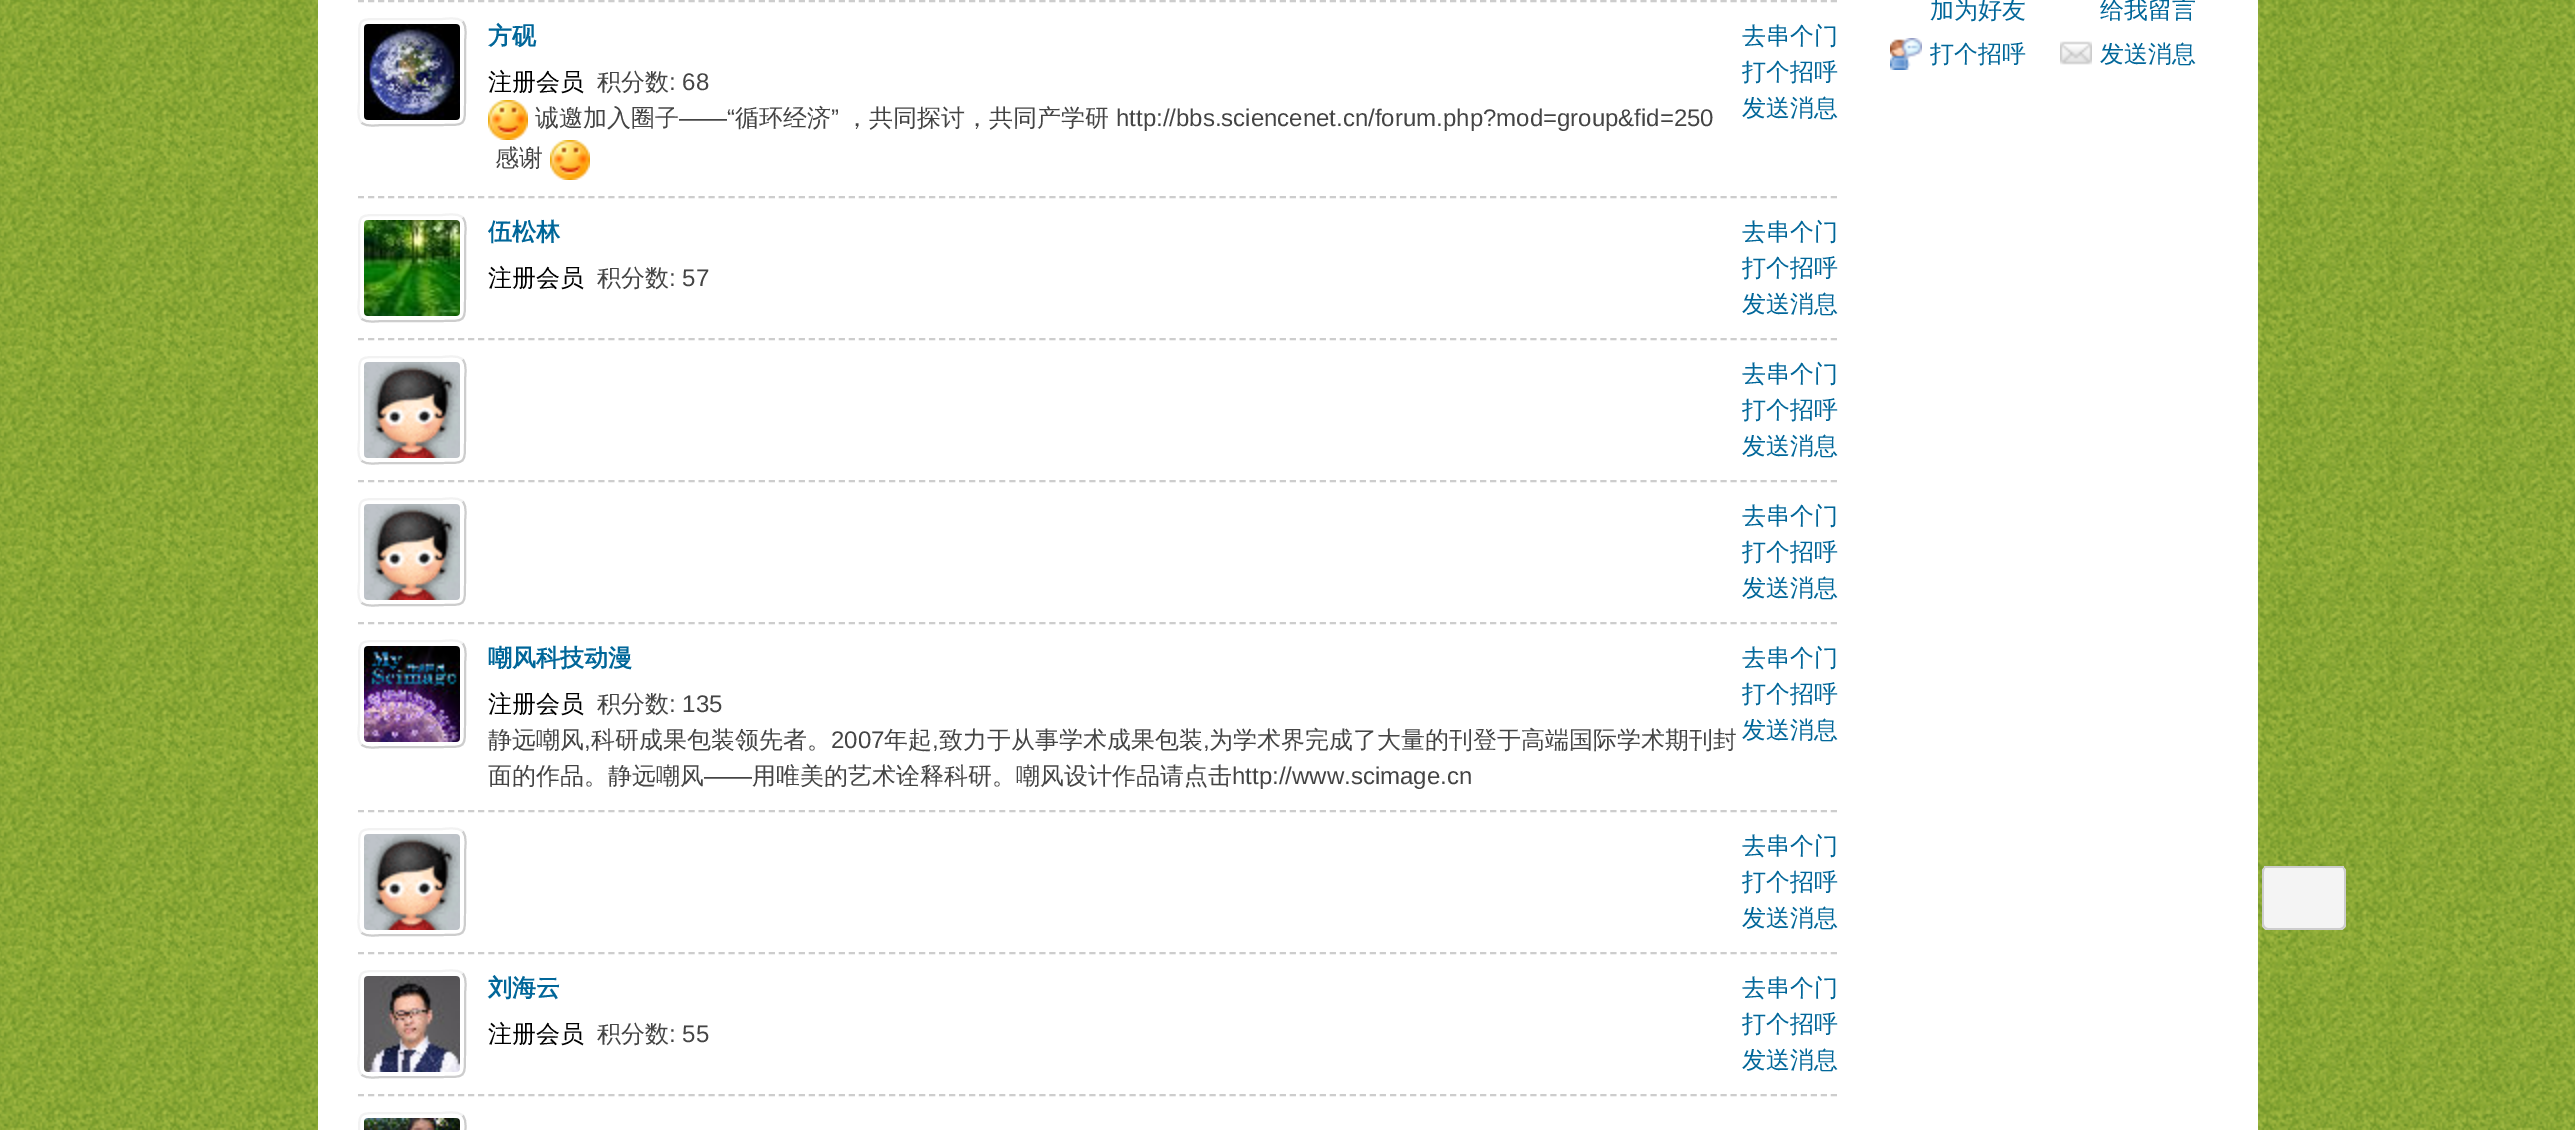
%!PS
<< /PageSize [2575 1130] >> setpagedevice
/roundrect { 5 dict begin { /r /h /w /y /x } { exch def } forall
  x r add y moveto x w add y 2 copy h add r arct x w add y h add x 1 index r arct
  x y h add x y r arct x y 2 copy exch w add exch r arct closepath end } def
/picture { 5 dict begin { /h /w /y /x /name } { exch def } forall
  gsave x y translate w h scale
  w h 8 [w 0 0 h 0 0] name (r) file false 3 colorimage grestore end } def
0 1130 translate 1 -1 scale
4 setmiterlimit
1 setgray
0 0 2575 1130 rectfill
(img1.rgb) 0 0 2575 1130 picture
318 0 1940 1130 rectfill
0.804 setgray
2 setlinewidth
[6 4.02] 0 setdash
newpath 358 1 moveto 1838 1 lineto stroke
newpath 358 197 moveto 1838 197 lineto stroke
[] 0 setdash
newpath 462.5 21.5 moveto 467.5 26.5 465 38 465 42.5 curveto 465 101.5 lineto 465 126 466 125 441.5 125 curveto 382.5 125 lineto 378 125 366.5 127.5 361.5 122.5 curveto stroke
0.949 setgray
newpath 361.5 122.5 moveto 356.5 117.5 359 106 359 101.5 curveto 359 42.5 lineto 359 18 358 19 382.5 19 curveto 441.5 19 lineto 446 19 457.5 16.5 462.5 21.5 curveto stroke
(img2.rgb) 364 24 96 96 picture
/WenQuanYiZenHei-Bold [24 0 0 -24 0 0] selectfont
0 0.4 0.6 setrgbcolor
488 44 moveto (方砚) show
/WenQuanYiZenHei-Medium [24 0 0 -24 0 0] selectfont
1742 44 moveto (去串个门) show
1742 80 moveto (打个招呼) show
1742 116 moveto (发送消息) show
0 setgray
488 90 moveto (注册会员) show
0.267 setgray
597 90 moveto (积分数) show
/LiberationSans-Regular [24 0 0 -24 0 0] selectfont
669 90 moveto (: 68) show
(img3.rgb) 488 100 40 40 picture
/WenQuanYiZenHei-Medium [24 0 0 -24 0 0] selectfont
535 126 moveto (诚邀加入圈子) show
/LiberationSans-Regular [24 0 0 -24 0 0] selectfont
679 126 moveto (——“) show
/WenQuanYiZenHei-Medium [24 0 0 -24 0 0] selectfont
735 126 moveto (循环经济) show
/LiberationSans-Regular [24 0 0 -24 0 0] selectfont
831 126 moveto (”) show
/WenQuanYiZenHei-Medium [24 0 0 -24 0 0] selectfont
845 126 moveto (，共同探讨，共同产学研) show
/LiberationSans-Regular [24 0 0 -24 0 0] selectfont
1116 126 moveto (http://bbs.sciencenet.cn/forum.php?mod=group&fid=250) show
/WenQuanYiZenHei-Medium [24 0 0 -24 0 0] selectfont
495 166 moveto (感谢) show
(img3.rgb) 550 140 40 40 picture
0.804 setgray
[6 4.02] 0 setdash
newpath 358 339 moveto 1838 339 lineto stroke
[] 0 setdash
newpath 462.5 217.5 moveto 467.5 222.5 465 234 465 238.5 curveto 465 297.5 lineto 465 322 466 321 441.5 321 curveto 382.5 321 lineto 378 321 366.5 323.5 361.5 318.5 curveto stroke
0.949 setgray
newpath 361.5 318.5 moveto 356.5 313.5 359 302 359 297.5 curveto 359 238.5 lineto 359 214 358 215 382.5 215 curveto 441.5 215 lineto 446 215 457.5 212.5 462.5 217.5 curveto stroke
(img4.rgb) 364 220 96 96 picture
/WenQuanYiZenHei-Bold [24 0 0 -24 0 0] selectfont
0 0.4 0.6 setrgbcolor
488 240 moveto (伍松林) show
/WenQuanYiZenHei-Medium [24 0 0 -24 0 0] selectfont
1742 240 moveto (去串个门) show
1742 276 moveto (打个招呼) show
1742 312 moveto (发送消息) show
0 setgray
488 286 moveto (注册会员) show
0.267 setgray
597 286 moveto (积分数) show
/LiberationSans-Regular [24 0 0 -24 0 0] selectfont
669 286 moveto (: 57) show
0.804 setgray
[6 4.02] 0 setdash
newpath 358 481 moveto 1838 481 lineto stroke
[] 0 setdash
newpath 462.5 359.5 moveto 467.5 364.5 465 376 465 380.5 curveto 465 439.5 lineto 465 464 466 463 441.5 463 curveto 382.5 463 lineto 378 463 366.5 465.5 361.5 460.5 curveto stroke
0.949 setgray
newpath 361.5 460.5 moveto 356.5 455.5 359 444 359 439.5 curveto 359 380.5 lineto 359 356 358 357 382.5 357 curveto 441.5 357 lineto 446 357 457.5 354.5 462.5 359.5 curveto stroke
(img5.rgb) 364 362 96 96 picture
/WenQuanYiZenHei-Medium [24 0 0 -24 0 0] selectfont
0 0.4 0.6 setrgbcolor
1742 382 moveto (去串个门) show
1742 418 moveto (打个招呼) show
1742 454 moveto (发送消息) show
0.804 setgray
[6 4.02] 0 setdash
newpath 358 623 moveto 1838 623 lineto stroke
[] 0 setdash
newpath 462.5 501.5 moveto 467.5 506.5 465 518 465 522.5 curveto 465 581.5 lineto 465 606 466 605 441.5 605 curveto 382.5 605 lineto 378 605 366.5 607.5 361.5 602.5 curveto stroke
0.949 setgray
newpath 361.5 602.5 moveto 356.5 597.5 359 586 359 581.5 curveto 359 522.5 lineto 359 498 358 499 382.5 499 curveto 441.5 499 lineto 446 499 457.5 496.5 462.5 501.5 curveto stroke
(img5.rgb) 364 504 96 96 picture
0 0.4 0.6 setrgbcolor
1742 524 moveto (去串个门) show
1742 560 moveto (打个招呼) show
1742 596 moveto (发送消息) show
0.804 setgray
[6 4.02] 0 setdash
newpath 358 811 moveto 1838 811 lineto stroke
[] 0 setdash
newpath 462.5 643.5 moveto 467.5 648.5 465 660 465 664.5 curveto 465 723.5 lineto 465 748 466 747 441.5 747 curveto 382.5 747 lineto 378 747 366.5 749.5 361.5 744.5 curveto stroke
0.949 setgray
newpath 361.5 744.5 moveto 356.5 739.5 359 728 359 723.5 curveto 359 664.5 lineto 359 640 358 641 382.5 641 curveto 441.5 641 lineto 446 641 457.5 638.5 462.5 643.5 curveto stroke
(img6.rgb) 364 646 96 96 picture
/WenQuanYiZenHei-Bold [24 0 0 -24 0 0] selectfont
0 0.4 0.6 setrgbcolor
488 666 moveto (嘲风科技动漫) show
/WenQuanYiZenHei-Medium [24 0 0 -24 0 0] selectfont
1742 666 moveto (去串个门) show
1742 702 moveto (打个招呼) show
1742 738 moveto (发送消息) show
0 setgray
488 712 moveto (注册会员) show
0.267 setgray
597 712 moveto (积分数) show
/LiberationSans-Regular [24 0 0 -24 0 0] selectfont
669 712 moveto (: 135) show
/WenQuanYiZenHei-Medium [24 0 0 -24 0 0] selectfont
488 748 moveto (静远嘲风) show
/LiberationSans-Regular [24 0 0 -24 0 0] selectfont
584 748 moveto (,) show
/WenQuanYiZenHei-Medium [24 0 0 -24 0 0] selectfont
591 748 moveto (科研成果包装领先者。) show
/LiberationSans-Regular [24 0 0 -24 0 0] selectfont
831 748 moveto (2007) show
/WenQuanYiZenHei-Medium [24 0 0 -24 0 0] selectfont
884 748 moveto (年起) show
/LiberationSans-Regular [24 0 0 -24 0 0] selectfont
932 748 moveto (,) show
/WenQuanYiZenHei-Medium [24 0 0 -24 0 0] selectfont
939 748 moveto (致力于从事学术成果包装) show
/LiberationSans-Regular [24 0 0 -24 0 0] selectfont
1203 748 moveto (,) show
/WenQuanYiZenHei-Medium [24 0 0 -24 0 0] selectfont
1209 748 moveto (为学术界完成了大量的刊登于高端国际学术期刊封) show
488 784 moveto (面的作品。静远嘲风) show
/LiberationSans-Regular [24 0 0 -24 0 0] selectfont
704 784 moveto (——) show
/WenQuanYiZenHei-Medium [24 0 0 -24 0 0] selectfont
752 784 moveto (用唯美的艺术诠释科研。嘲风设计作品请点击) show
/LiberationSans-Regular [24 0 0 -24 0 0] selectfont
1232 784 moveto (http://www.scimage.cn) show
0.804 setgray
[6 4.02] 0 setdash
newpath 358 953 moveto 1838 953 lineto stroke
[] 0 setdash
newpath 462.5 831.5 moveto 467.5 836.5 465 848 465 852.5 curveto 465 911.5 lineto 465 936 466 935 441.5 935 curveto 382.5 935 lineto 378 935 366.5 937.5 361.5 932.5 curveto stroke
0.949 setgray
newpath 361.5 932.5 moveto 356.5 927.5 359 916 359 911.5 curveto 359 852.5 lineto 359 828 358 829 382.5 829 curveto 441.5 829 lineto 446 829 457.5 826.5 462.5 831.5 curveto stroke
(img5.rgb) 364 834 96 96 picture
/WenQuanYiZenHei-Medium [24 0 0 -24 0 0] selectfont
0 0.4 0.6 setrgbcolor
1742 854 moveto (去串个门) show
1742 890 moveto (打个招呼) show
1742 926 moveto (发送消息) show
0.804 setgray
[6 4.02] 0 setdash
newpath 358 1095 moveto 1838 1095 lineto stroke
[] 0 setdash
newpath 462.5 973.5 moveto 467.5 978.5 465 990 465 994.5 curveto 465 1053.5 lineto 465 1078 466 1077 441.5 1077 curveto 382.5 1077 lineto 378 1077 366.5 1079.5 361.5 1074.5 curveto stroke
0.949 setgray
newpath 361.5 1074.5 moveto 356.5 1069.5 359 1058 359 1053.5 curveto 359 994.5 lineto 359 970 358 971 382.5 971 curveto 441.5 971 lineto 446 971 457.5 968.5 462.5 973.5 curveto stroke
(img7.rgb) 364 976 96 96 picture
/WenQuanYiZenHei-Bold [24 0 0 -24 0 0] selectfont
0 0.4 0.6 setrgbcolor
488 996 moveto (刘海云) show
/WenQuanYiZenHei-Medium [24 0 0 -24 0 0] selectfont
1742 996 moveto (去串个门) show
1742 1032 moveto (打个招呼) show
1742 1068 moveto (发送消息) show
0 setgray
488 1042 moveto (注册会员) show
0.267 setgray
597 1042 moveto (积分数) show
/LiberationSans-Regular [24 0 0 -24 0 0] selectfont
669 1042 moveto (: 55) show
0.804 setgray
newpath 462.5 1115.5 moveto 467.5 1120.5 465 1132 465 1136.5 curveto 465 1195.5 lineto 465 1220 466 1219 441.5 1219 curveto 382.5 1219 lineto 378 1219 366.5 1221.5 361.5 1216.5 curveto stroke
0.949 setgray
newpath 361.5 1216.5 moveto 356.5 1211.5 359 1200 359 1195.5 curveto 359 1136.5 lineto 359 1112 358 1113 382.5 1113 curveto 441.5 1113 lineto 446 1113 457.5 1110.5 462.5 1115.5 curveto stroke
(img8.rgb) 364 1118 96 12 picture
/WenQuanYiZenHei-Medium [24 0 0 -24 0 0] selectfont
0 0.4 0.6 setrgbcolor
1930 18 moveto (加为好友) show
2100 18 moveto (给我留言) show
(img9.rgb) 1890 38 32 32 picture
1930 62 moveto (打个招呼) show
(img10.rgb) 2060 41 32 24 picture
2100 62 moveto (发送消息) show
0.957 setgray
2262 866 84 64 6 roundrect fill
0.804 setgray
newpath 2268 866 moveto 2340 866 lineto 2343 866 2346 869 2346 872 curveto 2346 924 lineto 2346 927 2343 930 2340 930 curveto 2268 930 lineto 2265 930 2262 927 2262 924 curveto 2262 872 lineto 2262 869 2265 866 2268 866 curveto closepath 2268 866 moveto 2340 866 lineto 2342 866 2344 869 2344 872 curveto 2344 924 lineto 2344 926 2342 928 2340 928 curveto 2268 928 lineto 2266 928 2264 926 2264 924 curveto 2264 872 lineto 2264 869 2266 866 2268 866 curveto closepath eofill
2264 866 80 2 rectfill
showpage
